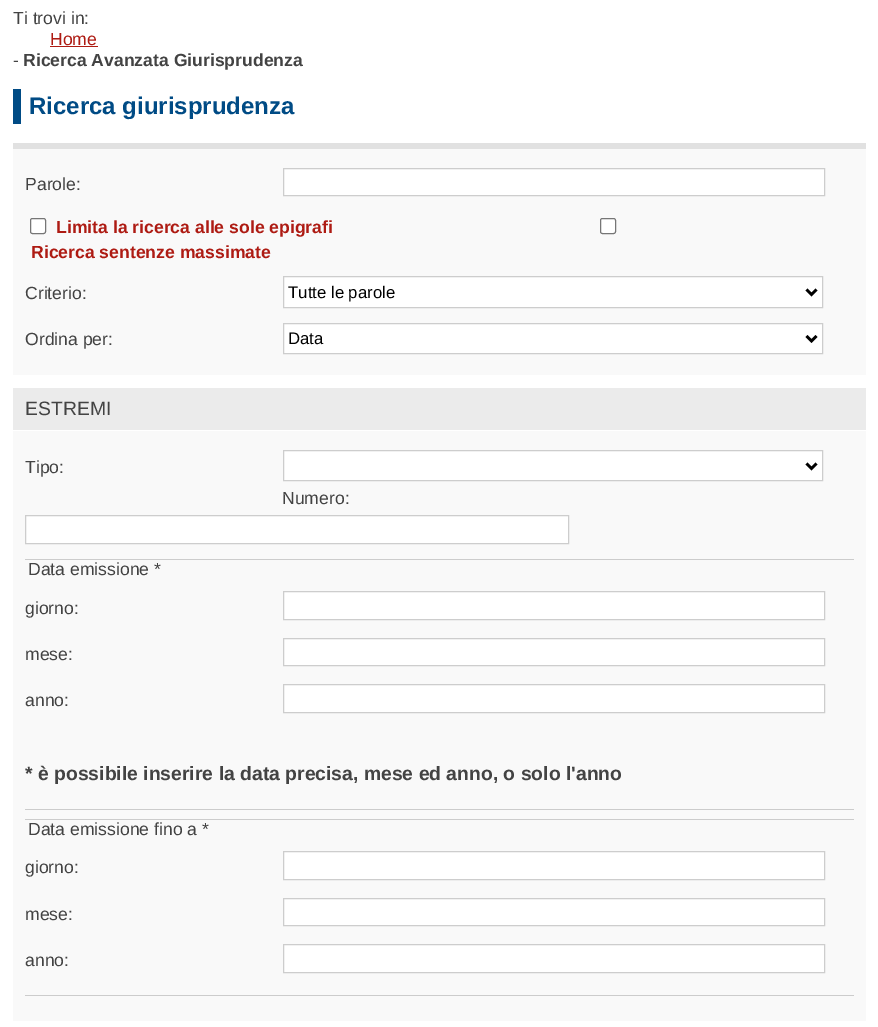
%!PS
<< /PageSize [878 1027] >> setpagedevice
/roundrect { 5 dict begin { /r /h /w /y /x } { exch def } forall
  x r add y moveto x w add y 2 copy h add r arct x w add y h add x 1 index r arct
  x y h add x y r arct x y 2 copy exch w add exch r arct closepath end } def
0 1027 translate 1 -1 scale
4 setmiterlimit
1 setgray
0 0 878 1027 rectfill
/LiberationSans-Regular [17.6 0 0 -17.6 0 0] selectfont
0.263 setgray
13 24 moveto (Ti trovi in:) show
0.682 0.106 0.075 setrgbcolor
50 45 moveto (Home) show
50 46 48 1 rectfill
0.263 setgray
13 66 moveto (-) show
/LiberationSans-Bold [17.6 0 0 -17.6 0 0] selectfont
23 66 moveto (Ricerca Avanzata Giurisprudenza) show
0 0.294 0.522 setrgbcolor
13 89 8 35 rectfill
/LiberationSans-Bold [24 0 0 -24 0 0] selectfont
29 114 moveto (Ricerca giurisprudenza) show
0.976 setgray
13 149 853 226 rectfill
0.882 setgray
13 143 853 6 rectfill
/LiberationSans-Regular [17.6 0 0 -17.6 0 0] selectfont
0.263 setgray
25 190 moveto (Parole:) show
1 setgray
newpath 283.5 168.5 moveto 824.5 168.5 lineto 824.5 195.5 lineto 283.5 195.5 lineto closepath gsave fill grestore
0.804 setgray
stroke
1 setgray
30.5 218.5 15 15 2 roundrect gsave fill grestore
0.463 setgray
stroke
/LiberationSans-Bold [17.6 0 0 -17.6 0 0] selectfont
0.682 0.106 0.075 setrgbcolor
56 233 moveto (Limita la ricerca alle sole epigrafi) show
1 setgray
600.5 218.5 15 15 2 roundrect gsave fill grestore
0.463 setgray
stroke
0.682 0.106 0.075 setrgbcolor
31 258 moveto (Ricerca sentenze massimate) show
/LiberationSans-Regular [17.6 0 0 -17.6 0 0] selectfont
0.263 setgray
25 299 moveto (Criterio:) show
1 setgray
newpath 283.5 276.5 moveto 822.5 276.5 lineto 822.5 307.5 lineto 283.5 307.5 lineto closepath gsave fill grestore
0.804 setgray
stroke
0 setgray
2.5 setlinewidth
newpath 806.5 289.5 moveto 811.5 294.5 lineto 816.5 289.5 lineto stroke
/LiberationSans-Regular [16.75 0 0 -16.75 0 0] selectfont
288 298 moveto (Tutte le parole) show
/LiberationSans-Regular [17.6 0 0 -17.6 0 0] selectfont
0.263 setgray
25 345 moveto (Ordina per:) show
1 setgray
newpath 283.5 323.5 moveto 822.5 323.5 lineto 822.5 353.5 lineto 283.5 353.5 lineto closepath gsave fill grestore
0.804 setgray
1 setlinewidth
stroke
0 setgray
2.5 setlinewidth
newpath 806.5 336 moveto 811.5 341 lineto 816.5 336 lineto stroke
/LiberationSans-Regular [16.75 0 0 -16.75 0 0] selectfont
288 344 moveto (Data) show
0.922 setgray
13 388 853 42 rectfill
/LiberationSans-Regular [19.35 0 0 -19.35 0 0] selectfont
0.263 setgray
25 415 moveto (ESTREMI) show
0.976 setgray
13 431 853 590 rectfill
/LiberationSans-Regular [17.6 0 0 -17.6 0 0] selectfont
0.263 setgray
25 473 moveto (Tipo:) show
1 setgray
newpath 283.5 450.5 moveto 822.5 450.5 lineto 822.5 480.5 lineto 283.5 480.5 lineto closepath gsave fill grestore
0.804 setgray
1 setlinewidth
stroke
0 setgray
2.5 setlinewidth
newpath 806.5 463.5 moveto 811.5 468.5 lineto 816.5 463.5 lineto stroke
0.263 setgray
282 504 moveto (Numero:) show
1 setgray
newpath 25.5 515.5 moveto 568.5 515.5 lineto 568.5 543.5 lineto 25.5 543.5 lineto closepath gsave fill grestore
0.804 setgray
1 setlinewidth
stroke
0.8 setgray
25 559 829 1 rectfill
25 809 829 1 rectfill
0.263 setgray
28 575 moveto (Data emissione *) show
25 614 moveto (giorno:) show
1 setgray
newpath 283.5 591.5 moveto 824.5 591.5 lineto 824.5 619.5 lineto 283.5 619.5 lineto closepath gsave fill grestore
0.804 setgray
stroke
0.263 setgray
25 660 moveto (mese:) show
1 setgray
newpath 283.5 638.5 moveto 824.5 638.5 lineto 824.5 665.5 lineto 283.5 665.5 lineto closepath gsave fill grestore
0.804 setgray
stroke
0.263 setgray
25 706 moveto (anno:) show
1 setgray
newpath 283.5 684.5 moveto 824.5 684.5 lineto 824.5 712.5 lineto 283.5 712.5 lineto closepath gsave fill grestore
0.804 setgray
stroke
/LiberationSans-Bold [19.35 0 0 -19.35 0 0] selectfont
0.263 setgray
25 780 moveto (* è possibile inserire la data precisa, mese ed anno, o solo l'anno) show
0.8 setgray
25 819 829 1 rectfill
25 995 829 1 rectfill
/LiberationSans-Regular [17.6 0 0 -17.6 0 0] selectfont
0.263 setgray
28 835 moveto (Data emissione fino a *) show
25 873 moveto (giorno:) show
1 setgray
newpath 283.5 851.5 moveto 824.5 851.5 lineto 824.5 879.5 lineto 283.5 879.5 lineto closepath gsave fill grestore
0.804 setgray
stroke
0.263 setgray
25 920 moveto (mese:) show
1 setgray
newpath 283.5 898.5 moveto 824.5 898.5 lineto 824.5 925.5 lineto 283.5 925.5 lineto closepath gsave fill grestore
0.804 setgray
stroke
0.263 setgray
25 966 moveto (anno:) show
1 setgray
newpath 283.5 944.5 moveto 824.5 944.5 lineto 824.5 972.5 lineto 283.5 972.5 lineto closepath gsave fill grestore
0.804 setgray
stroke
showpage
